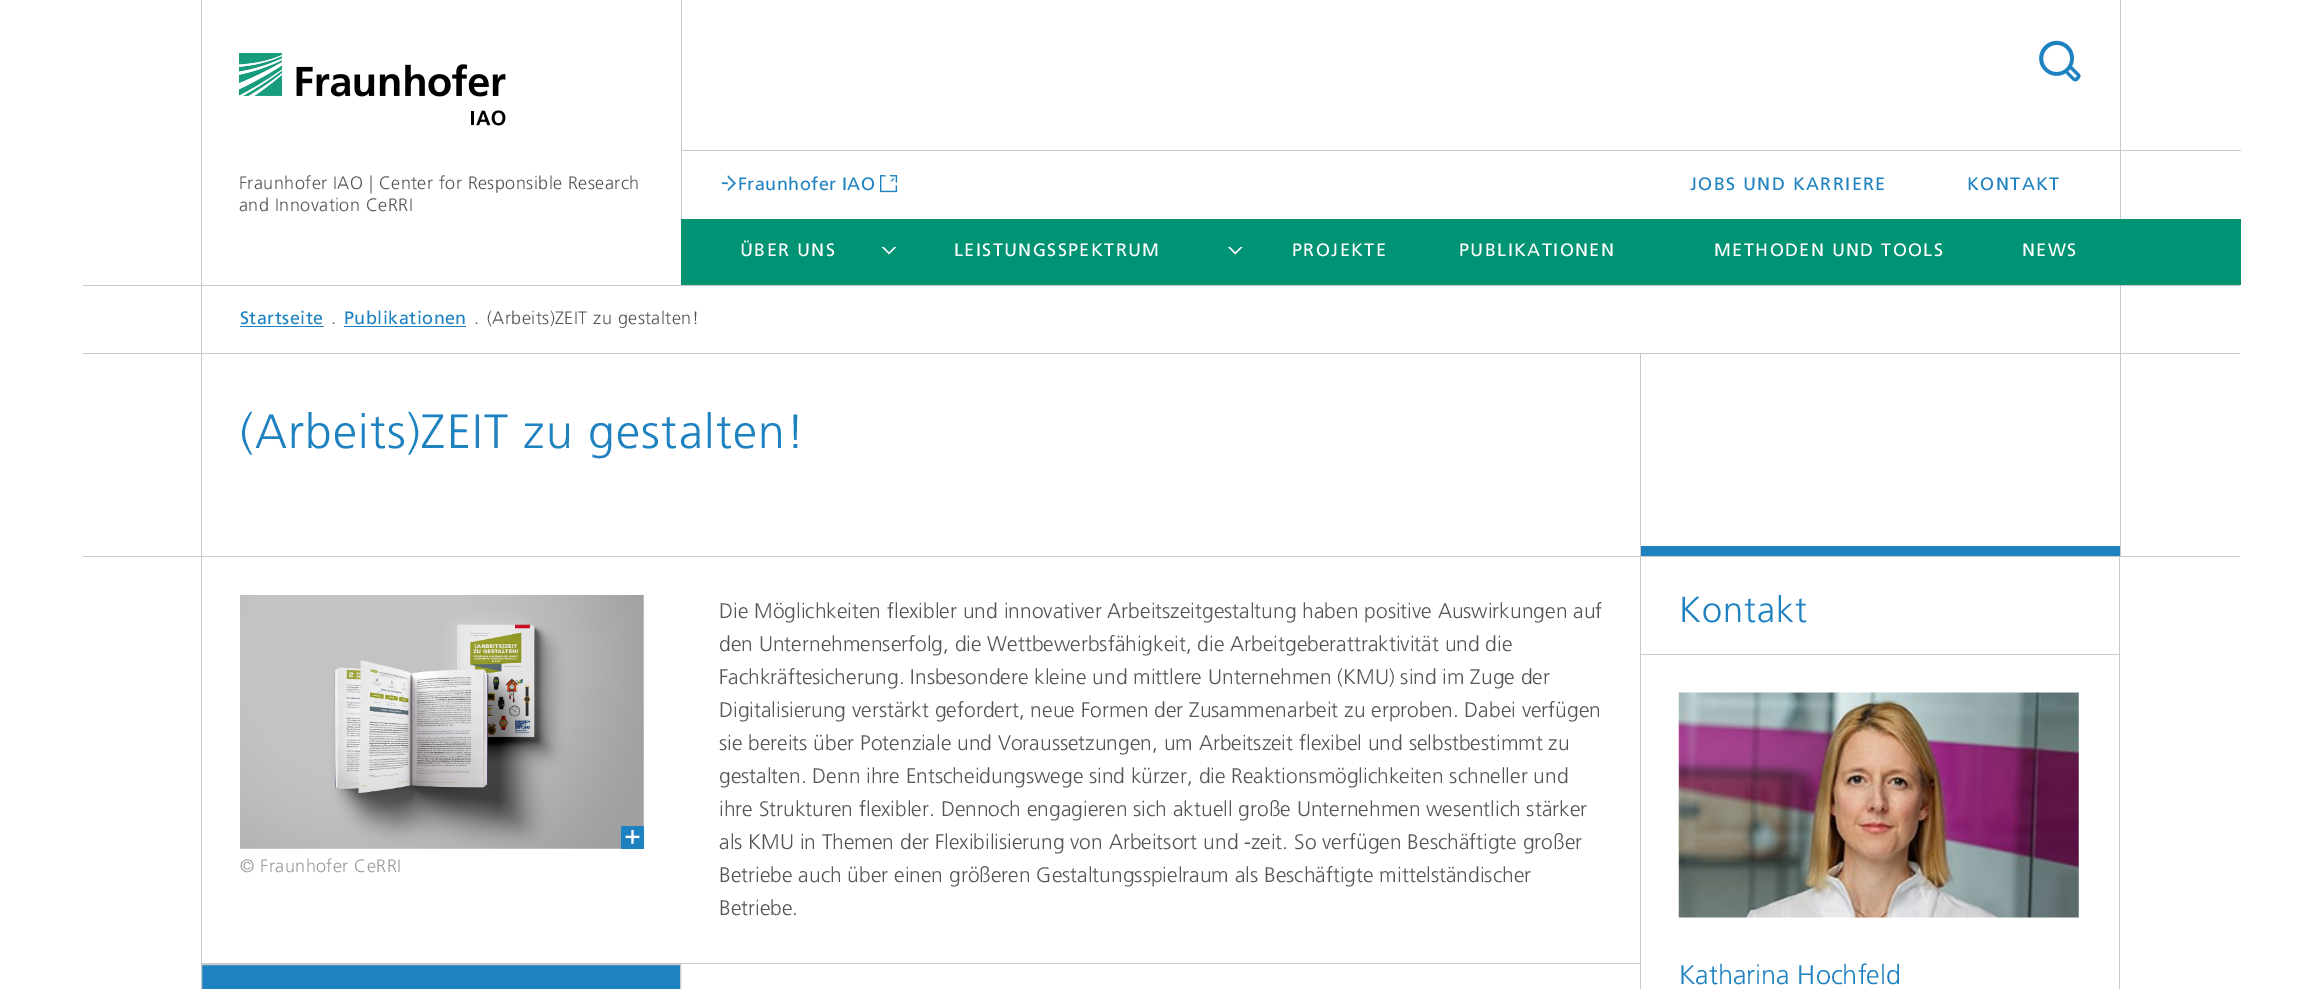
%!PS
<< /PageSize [2322 989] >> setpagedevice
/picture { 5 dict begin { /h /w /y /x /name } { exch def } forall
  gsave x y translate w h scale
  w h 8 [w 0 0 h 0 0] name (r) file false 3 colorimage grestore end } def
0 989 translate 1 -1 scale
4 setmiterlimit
1 setgray
0 0 2322 989 rectfill
(img1.rgb) 239 53 267 73 picture
(img2.rgb) 2039 40 42 42 picture
0.78 0.792 0.8 setrgbcolor
681 150 1560 1 rectfill
/Frutiger-Light [18 0 0 -18 0 0] selectfont
0.333 setgray
239 189 moveto 0.45 0 (Fraunhofer IAO | Center for Responsible Research) ashow
239 211 moveto 0.45 0 (and Innovation CeRRI) ashow
0.78 0.792 0.8 setrgbcolor
2120 0 1 219 rectfill
681 0 1 219 rectfill
(img3.rgb) 721 175 15 17 picture
/Frutiger-Regular [18 0 0 -18 0 0] selectfont
0.122 0.51 0.753 setrgbcolor
738 190 moveto 0.45 0 (Fraunhofer IAO) ashow
(img4.rgb) 880 175 18 18 picture
1690 190 moveto 1.4 0 (JOBS UND KARRIERE) ashow
1967 190 moveto 1.4 0 (KONTAKT) ashow
0 0.576 0.455 setrgbcolor
681 219 1560 66 rectfill
1 setgray
740 256 moveto 1.4 0 (ÜBER UNS) ashow
(img5.rgb) 881 247 16 8 picture
954 256 moveto 1.4 0 (LEISTUNGSSPEKTRUM) ashow
(img6.rgb) 1227 247 16 8 picture
1292 256 moveto 1.4 0 (PROJEKTE) ashow
1459 256 moveto 1.4 0 (PUBLIKATIONEN) ashow
1714 256 moveto 1.4 0 (METHODEN UND TOOLS) ashow
2022 256 moveto 1.4 0 (NEWS) ashow
0.78 0.792 0.8 setrgbcolor
201 0 1 963 rectfill
83 285 120 1 rectfill
201 285 2039 1 rectfill
83 353 120 1 rectfill
201 353 2039 1 rectfill
2120 285 1 271 rectfill
0.122 0.51 0.753 setrgbcolor
240 324 moveto 0.45 0 (Startseite) ashow
240 326 84 1 rectfill
/Frutiger-Light [18 0 0 -18 0 0] selectfont
0.333 setgray
331 324 moveto 0.45 0 (.) ashow
/Frutiger-Regular [18 0 0 -18 0 0] selectfont
0.122 0.51 0.753 setrgbcolor
344 324 moveto 0.45 0 (Publikationen) ashow
344 326 122 1 rectfill
/Frutiger-Light [18 0 0 -18 0 0] selectfont
0.333 setgray
474 324 moveto 0.45 0 (.) ashow
487 324 moveto 0.45 0 (\(Arbeits\)ZEIT zu gestalten!) ashow
/Frutiger-Light [48 0 0 -48 0 0] selectfont
0.122 0.51 0.753 setrgbcolor
240 448 moveto 1.2 0 (\(Arbeits\)ZEIT zu gestalten!) ashow
1641 546 479 10 rectfill
0.78 0.792 0.8 setrgbcolor
83 556 1558 1 rectfill
1641 556 599 1 rectfill
(img7.rgb) 240 595 404 254 picture
0.122 0.51 0.753 setrgbcolor
621 826 23 23 rectfill
(img8.rgb) 625 830 15 14 picture
/Frutiger-Light [18 0 0 -18 0 0] selectfont
0.6 setgray
240 872 moveto 0.45 0 (© Fraunhofer CeRRI) ashow
/Frutiger-Light [21 0 0 -21 0 0] selectfont
0.333 setgray
719 618 moveto (Die Möglichkeiten flexibler und innovativer Arbeitszeitgestaltung haben positive Auswirkungen auf) show
719 651 moveto (den Unternehmenserfolg, die Wettbewerbsfähigkeit, die Arbeitgeberattraktivität und die) show
719 684 moveto (Fachkräftesicherung. Insbesondere kleine und mittlere Unternehmen \(KMU\) sind im Zuge der) show
719 717 moveto (Digitalisierung verstärkt gefordert, neue Formen der Zusammenarbeit zu erproben. Dabei verfügen) show
719 750 moveto (sie bereits über Potenziale und Voraussetzungen, um Arbeitszeit flexibel und selbstbestimmt zu) show
719 783 moveto (gestalten. Denn ihre Entscheidungswege sind kürzer, die Reaktionsmöglichkeiten schneller und) show
719 816 moveto (ihre Strukturen flexibler. Dennoch engagieren sich aktuell große Unternehmen wesentlich stärker) show
719 849 moveto (als KMU in Themen der Flexibilisierung von Arbeitsort und -zeit. So verfügen Beschäftigte großer) show
719 882 moveto (Betriebe auch über einen größeren Gestaltungsspielraum als Beschäftigte mittelständischer) show
719 915 moveto (Betriebe.) show
0.78 0.792 0.8 setrgbcolor
1640 354 1 635 rectfill
201 963 1440 1 rectfill
0.122 0.51 0.753 setrgbcolor
newpath 201.5 964.5 moveto 680.5 964.5 lineto 680.5 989.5 lineto 201.5 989.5 lineto closepath gsave fill grestore
0.78 0.792 0.8 setrgbcolor
stroke
2119 556 1 433 rectfill
1641 654 478 1 rectfill
/Frutiger-Light [36 0 0 -36 0 0] selectfont
0.122 0.51 0.753 setrgbcolor
1679 622 moveto 1 0 (Kontakt) ashow
(img9.rgb) 1678 692 401 226 picture
/Frutiger-Light [27 0 0 -27 0 0] selectfont
1679 984 moveto (Katharina Hochfeld) show
showpage
